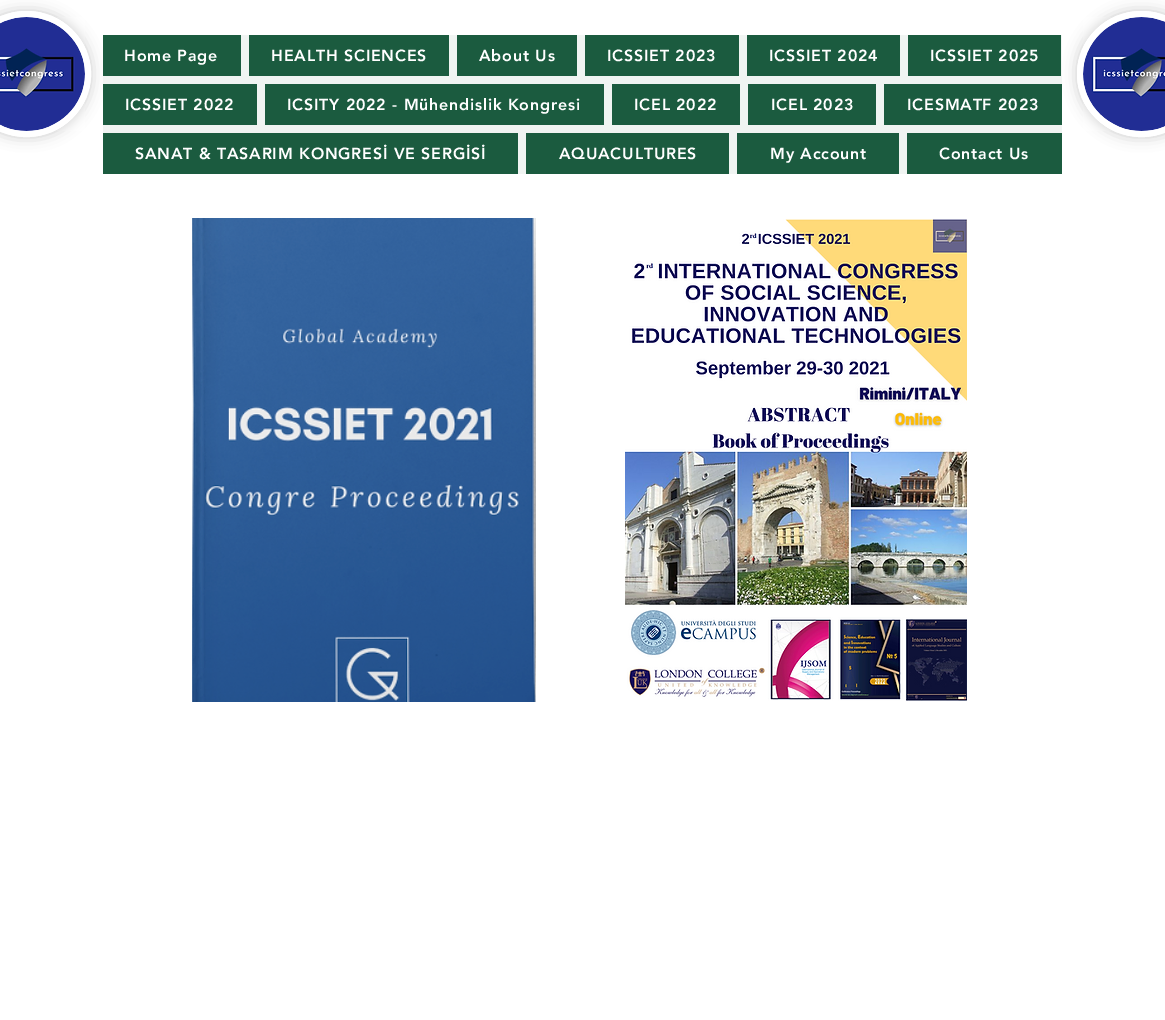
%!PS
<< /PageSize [1165 1020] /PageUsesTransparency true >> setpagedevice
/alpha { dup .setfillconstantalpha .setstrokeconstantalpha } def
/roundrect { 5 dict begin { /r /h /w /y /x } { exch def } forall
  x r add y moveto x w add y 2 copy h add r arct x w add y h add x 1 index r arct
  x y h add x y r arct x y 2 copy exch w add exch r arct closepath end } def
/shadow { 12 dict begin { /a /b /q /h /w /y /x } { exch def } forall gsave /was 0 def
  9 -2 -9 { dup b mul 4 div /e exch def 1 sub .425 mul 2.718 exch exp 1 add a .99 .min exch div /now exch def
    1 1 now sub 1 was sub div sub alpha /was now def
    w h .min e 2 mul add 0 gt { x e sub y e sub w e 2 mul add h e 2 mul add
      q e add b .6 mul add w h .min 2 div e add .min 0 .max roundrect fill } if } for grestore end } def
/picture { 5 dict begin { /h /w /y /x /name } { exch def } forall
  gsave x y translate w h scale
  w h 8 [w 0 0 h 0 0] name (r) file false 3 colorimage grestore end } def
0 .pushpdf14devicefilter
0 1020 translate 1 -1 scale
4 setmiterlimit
1 setgray
0 0 1165 1020 rectfill
0 setgray
-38 11 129 126 63 7 0.2 shadow
1 setgray
newpath 26.5 11 moveto 62 11 91 39 91 74 curveto 91 109 62 137 26.5 137 curveto -9 137 -38 109 -38 74 curveto -38 39 -9 11 26.5 11 curveto closepath fill
6 setlinewidth
newpath 26.5 14 moveto 60.5 14 88 41 88 74 curveto 88 107 60.5 134 26.5 134 curveto -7.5 134 -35 107 -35 74 curveto -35 41 -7.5 14 26.5 14 curveto closepath stroke
(img1.rgb) 0 17 85 114 picture
0.941 0.957 0.949 setrgbcolor
103 35 959 139 rectfill
0.106 0.357 0.247 setrgbcolor
103 35 138 41 rectfill
/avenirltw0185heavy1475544-Black [16 0 0 -16 0 0] selectfont
1 setgray
124 61 moveto 0.8 0 (Home Page) ashow
0.106 0.357 0.247 setrgbcolor
249 35 200 41 rectfill
1 setgray
271 61 moveto 0.8 0 (HEALTH SCIENCES) ashow
0.106 0.357 0.247 setrgbcolor
457 35 120 41 rectfill
1 setgray
479 61 moveto 0.8 0 (About Us) ashow
0.106 0.357 0.247 setrgbcolor
585 35 154 41 rectfill
1 setgray
607 61 moveto 0.8 0 (ICSSIET 2023) ashow
0.106 0.357 0.247 setrgbcolor
747 35 153 41 rectfill
1 setgray
769 61 moveto 0.8 0 (ICSSIET 2024) ashow
0.106 0.357 0.247 setrgbcolor
908 35 153 41 rectfill
1 setgray
930 61 moveto 0.8 0 (ICSSIET 2025) ashow
0.106 0.357 0.247 setrgbcolor
103 84 154 41 rectfill
1 setgray
125 110 moveto 0.8 0 (ICSSIET 2022) ashow
0.106 0.357 0.247 setrgbcolor
265 84 339 41 rectfill
1 setgray
287 110 moveto 0.8 0 (ICSITY 2022 - Mühendislik Kongresi) ashow
0.106 0.357 0.247 setrgbcolor
612 84 128 41 rectfill
1 setgray
634 110 moveto 0.8 0 (ICEL 2022) ashow
0.106 0.357 0.247 setrgbcolor
748 84 128 41 rectfill
1 setgray
771 110 moveto 0.8 0 (ICEL 2023) ashow
0.106 0.357 0.247 setrgbcolor
884 84 178 41 rectfill
1 setgray
907 110 moveto 0.8 0 (ICESMATF 2023) ashow
0.106 0.357 0.247 setrgbcolor
103 133 415 41 rectfill
1 setgray
135 159 moveto 0.8 0 (SANAT & TASARIM KONGRESİ VE SERGİSİ) ashow
0.106 0.357 0.247 setrgbcolor
526 133 203 41 rectfill
1 setgray
559 159 moveto 0.8 0 (AQUACULTURES) ashow
0.106 0.357 0.247 setrgbcolor
737 133 162 41 rectfill
1 setgray
770 159 moveto 0.8 0 (My Account) ashow
0.106 0.357 0.247 setrgbcolor
907 133 155 41 rectfill
1 setgray
939 159 moveto 0.8 0 (Contact Us) ashow
0 setgray
1077 11 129 126 63 7 0.2 shadow
1 setgray
newpath 1141.5 11 moveto 1177 11 1206 39 1206 74 curveto 1206 109 1177 137 1141.5 137 curveto 1106 137 1077 109 1077 74 curveto 1077 39 1106 11 1141.5 11 curveto closepath fill
newpath 1141.5 14 moveto 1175.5 14 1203 41 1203 74 curveto 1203 107 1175.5 134 1141.5 134 curveto 1107.5 134 1080 107 1080 74 curveto 1080 41 1107.5 14 1141.5 14 curveto closepath stroke
(img2.rgb) 1083 17 82 114 picture
(img3.rgb) 192 218 344 484 picture
(img4.rgb) 625 219 342 482 picture
.poppdf14devicefilter showpage
